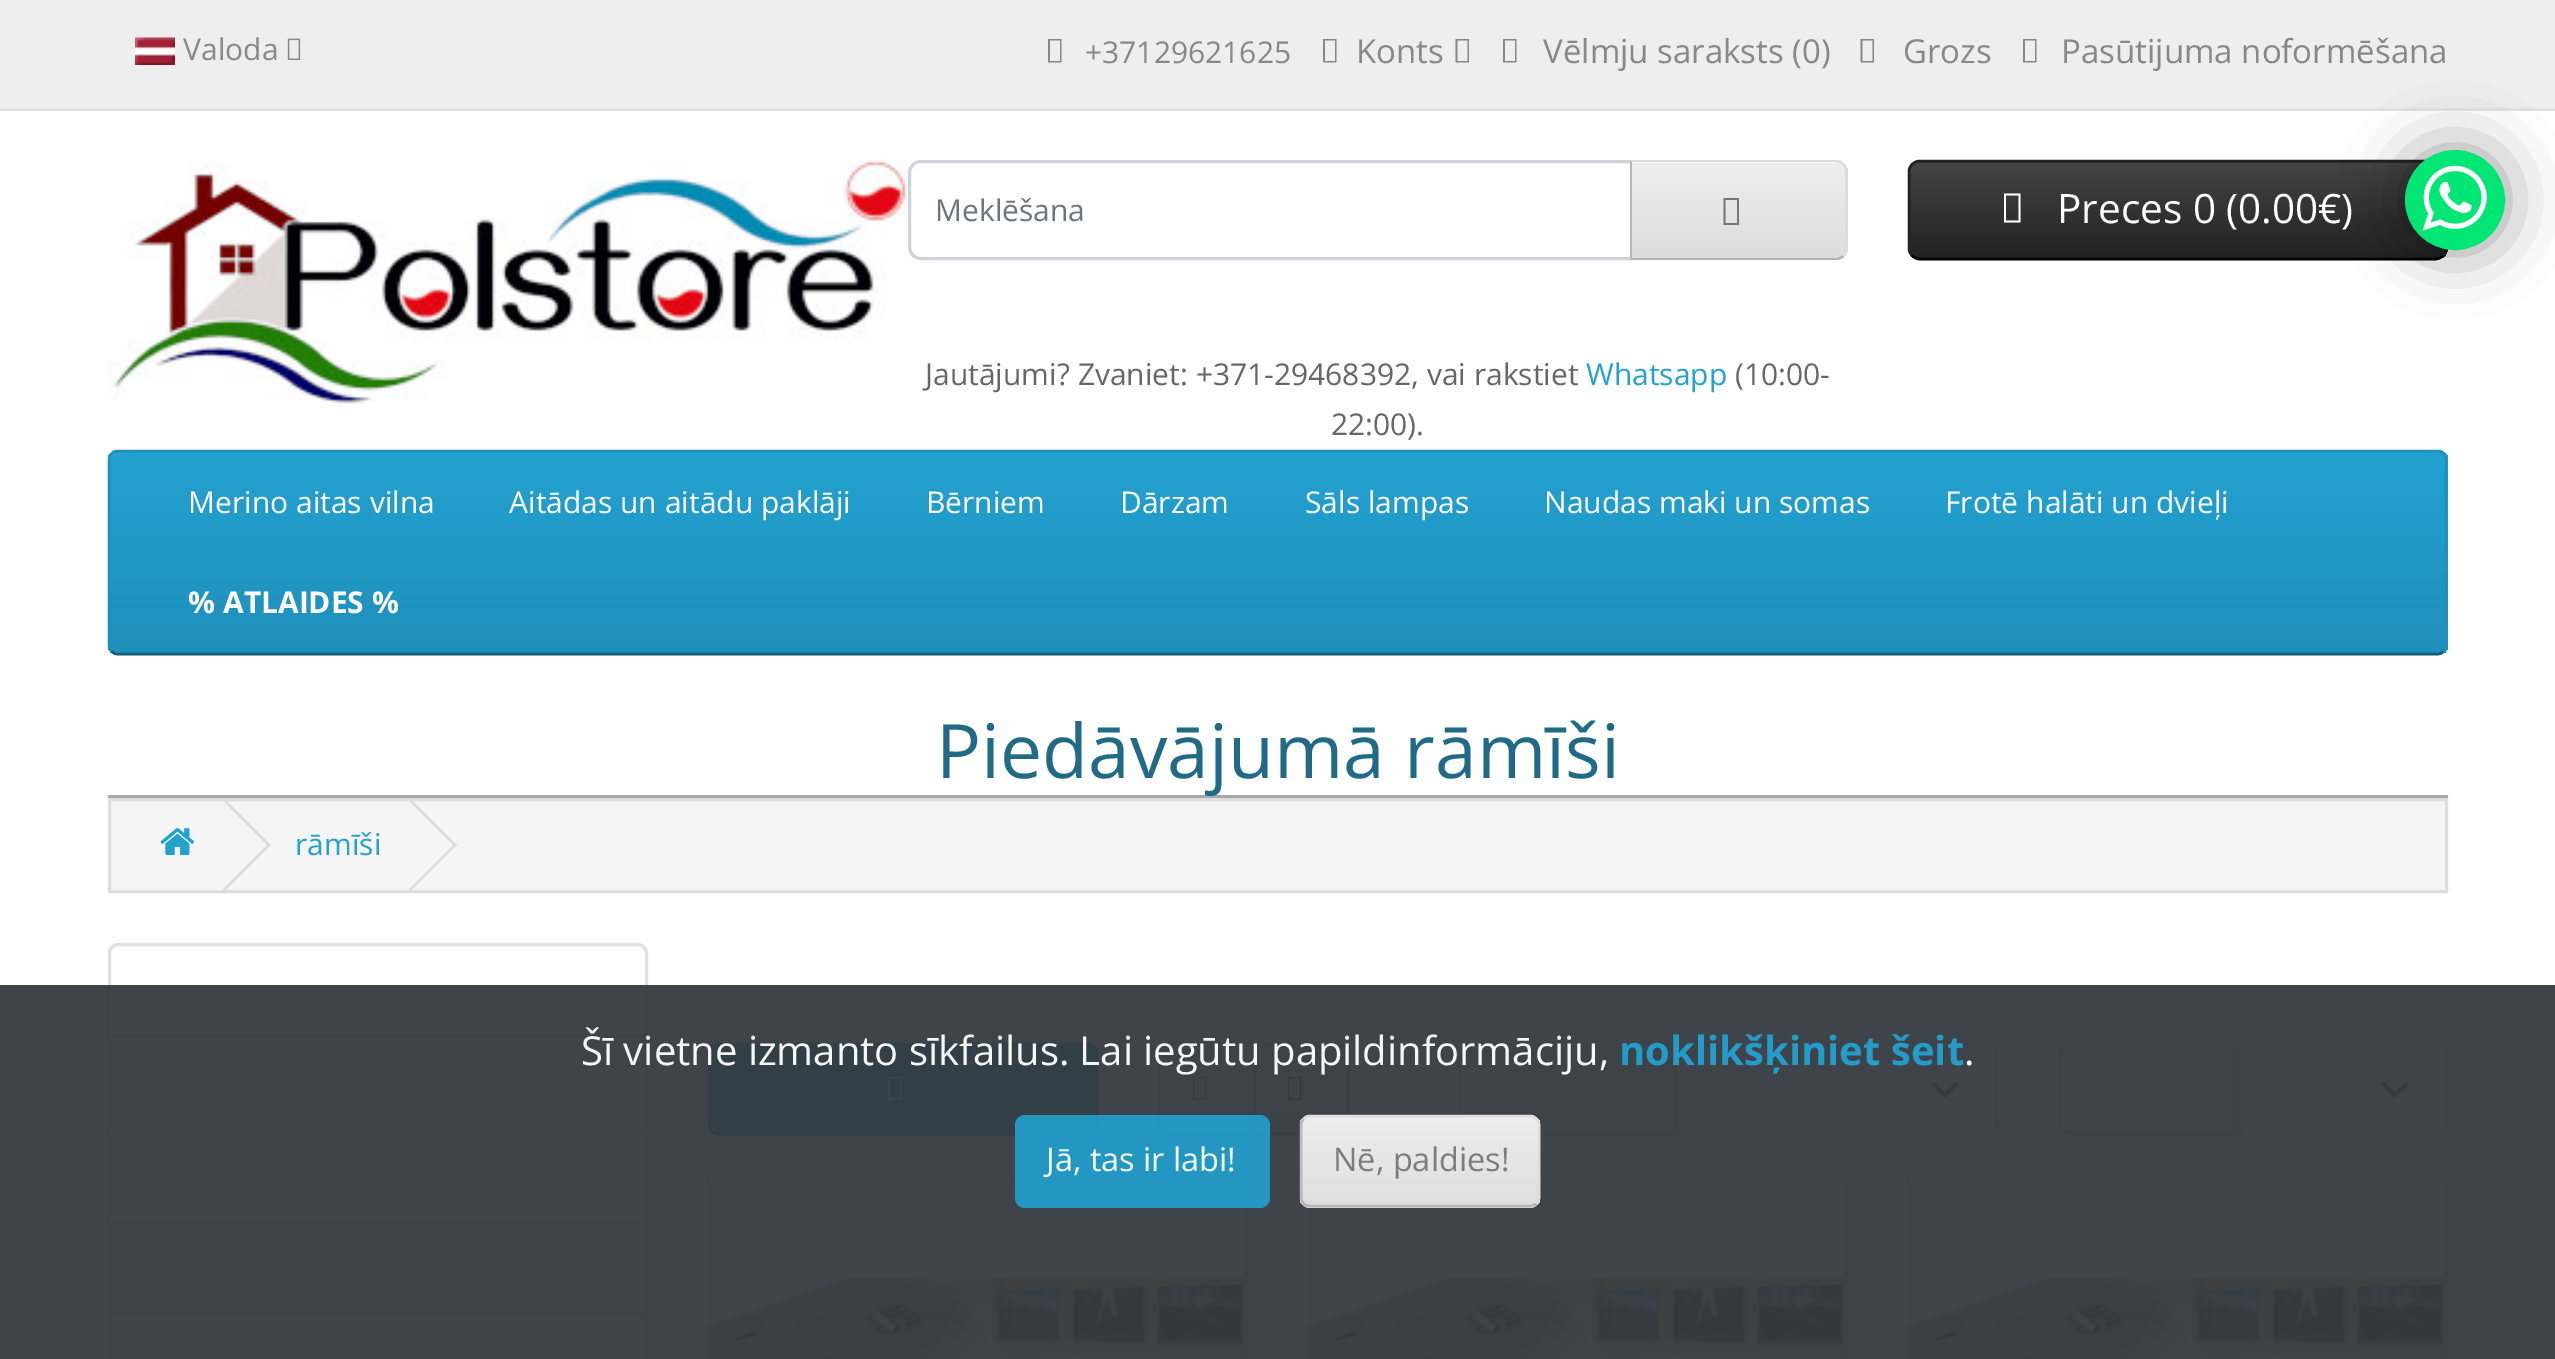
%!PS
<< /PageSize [2555 1359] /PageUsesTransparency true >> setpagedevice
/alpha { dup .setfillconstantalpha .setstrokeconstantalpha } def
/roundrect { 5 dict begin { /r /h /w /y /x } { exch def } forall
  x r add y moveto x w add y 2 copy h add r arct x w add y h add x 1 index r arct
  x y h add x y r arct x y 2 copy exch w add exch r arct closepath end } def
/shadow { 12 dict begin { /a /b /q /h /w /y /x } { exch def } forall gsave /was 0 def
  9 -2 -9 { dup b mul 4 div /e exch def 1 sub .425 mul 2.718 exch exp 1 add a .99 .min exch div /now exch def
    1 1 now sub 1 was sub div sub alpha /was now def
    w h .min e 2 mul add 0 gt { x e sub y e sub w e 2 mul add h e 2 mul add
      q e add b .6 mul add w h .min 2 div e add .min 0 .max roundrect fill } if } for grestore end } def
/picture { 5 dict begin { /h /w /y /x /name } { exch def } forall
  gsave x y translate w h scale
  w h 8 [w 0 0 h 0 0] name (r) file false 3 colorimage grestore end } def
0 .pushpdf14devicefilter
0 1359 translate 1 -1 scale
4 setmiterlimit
1 setgray
0 0 2555 1359 rectfill
0.933 setgray
0 0 2555 108 rectfill
0.886 setgray
0 108 2555 3 rectfill
(img1.rgb) 135 37 40 28 picture
/OpenSans-Regular [30 0 0 -30 0 0] selectfont
0.533 setgray
183 60 moveto (Valoda) show
(img2.rgb) 287 38 14 22 picture
newpath 1048 62.5 moveto 1048 39 lineto 1061.5 39 lineto 1061.5 62.5 lineto closepath 1050 61 moveto 1060 61 lineto 1060 40.5 lineto 1050 40.5 lineto closepath fill
1085 63 moveto (+37129621625) show
newpath 1323 62.5 moveto 1323 39 lineto 1336.5 39 lineto 1336.5 62.5 lineto closepath 1325 61 moveto 1335 61 lineto 1335 40.5 lineto 1325 40.5 lineto closepath fill
/OpenSans-Regular [33 0 0 -33 0 0] selectfont
1356 63 moveto (Konts) show
newpath 1455.5 62.5 moveto 1455.5 39 lineto 1469 39 lineto 1469 62.5 lineto closepath 1457.5 61 moveto 1467.5 61 lineto 1467.5 40.5 lineto 1457.5 40.5 lineto closepath fill
newpath 1503 62.5 moveto 1503 39 lineto 1516.5 39 lineto 1516.5 62.5 lineto closepath 1505 61 moveto 1515 61 lineto 1515 40.5 lineto 1505 40.5 lineto closepath fill
1543 63 moveto (Vēlmju saraksts \(0\)) show
newpath 1860.5 62.5 moveto 1860.5 39 lineto 1874 39 lineto 1874 62.5 lineto closepath 1862.5 61 moveto 1872.5 61 lineto 1872.5 40.5 lineto 1862.5 40.5 lineto closepath fill
1903 63 moveto (Grozs) show
newpath 2023 62.5 moveto 2023 39 lineto 2036.5 39 lineto 2036.5 62.5 lineto closepath 2025 61 moveto 2035 61 lineto 2035 40.5 lineto 2025 40.5 lineto closepath fill
2061 63 moveto (Pasūtijuma noformēšana) show
(img3.rgb) 107 160 801 248 picture
0.808 0.831 0.855 setrgbcolor
3 setlinewidth
newpath 921 161.5 moveto 1631.5 161.5 lineto 1631.5 258.5 lineto 921 258.5 lineto 914.5 258.5 909.5 253.5 909.5 247 curveto 909.5 173 lineto 909.5 166.5 914.5 161.5 921 161.5 curveto closepath stroke
/OpenSans-Regular [30 0 0 -30 0 0] selectfont
0.424 0.459 0.49 setrgbcolor
935 221 moveto (Meklēšana) show
0.973 0.976 0.98 setrgbcolor
newpath 1630 160 moveto 1835 160 lineto 1842 160 1848 166 1848 173 curveto 1848 247 lineto 1848 254 1842 260 1835 260 curveto 1630 260 lineto closepath fill
gsave
newpath 1630 160 moveto 1835 160 lineto 1842 160 1848 166 1848 173 curveto 1848 247 lineto 1848 254 1842 260 1835 260 curveto 1630 260 lineto closepath clip newpath
gsave newpath 1632 163 moveto 1848 163 lineto 1848 258 lineto 1632 258 lineto closepath clip newpath
<< /ShadingType 2 /ColorSpace /DeviceRGB /Coords [1739 163 1739 258] /Extend [true true] /Function << /FunctionType 2 /Domain [0 1] /C0 [0.933 0.933 0.933] /C1 [0.867 0.867 0.867] /N 1 >> >> shfill grestore
grestore
0.867 setgray
newpath 1630 160 moveto 1632 162 lineto 1836 162 lineto 1838 162 1841 163 1842 165 curveto 1844 163 lineto 1842 161 1839 160 1836 160 curveto closepath fill
newpath 1848 251 moveto 1847 253 1846 255 1844 257 curveto 1842 255 lineto 1844 253 1845 250 1845 248 curveto 1845 172 lineto 1845 170 1844 167 1842 165 curveto 1844 163 lineto 1846 165 1847 167 1848 169 curveto closepath fill
0.702 setgray
newpath 1836 260 moveto 1839 260 1842 259 1844 257 curveto 1842 255 lineto 1841 257 1838 258 1836 258 curveto 1632 258 lineto 1630 260 lineto closepath fill
0.718 setgray
newpath 1630 160 moveto 1630 260 lineto 1632 258 lineto 1632 162 lineto closepath fill
0.467 setgray
newpath 1723.5 225 moveto 1723.5 198 lineto 1739 198 lineto 1739 225 lineto closepath 1725.5 223 moveto 1737 223 lineto 1737 200 lineto 1725.5 200 lineto closepath fill
0.4 setgray
925 385 moveto (Jautājumi? Zvaniet: +371-29468392, vai rakstiet) show
0.137 0.631 0.82 setrgbcolor
1586 385 moveto (Whatsapp) show
0.4 setgray
1735 385 moveto (\(10:00-) show
1331 435 moveto (22:00\).) show
0.212 setgray
1908 160 540 100 13 roundrect fill
gsave
1908 160 540 100 13 roundrect clip newpath
gsave newpath 1908 163 moveto 2448 163 lineto 2448 258 lineto 1908 258 lineto closepath clip newpath
<< /ShadingType 2 /ColorSpace /DeviceRGB /Coords [2178 162 2178 258] /Extend [true true] /Function << /FunctionType 2 /Domain [0 1] /C0 [0.267 0.267 0.267] /C1 [0.133 0.133 0.133] /N 1 >> >> shfill grestore
grestore
0 setgray
2.5 setlinewidth
newpath 2443 255.5 moveto 2441 257.5 2438.5 259 2435.5 259 curveto 1919.5 259 lineto 1916.5 259 1914 257.5 1912 255.5 curveto stroke
0.133 setgray
newpath 1912 255.5 moveto 1910 253.5 1909 251 1909 248 curveto 1909 172 lineto 1909 169 1910 166.5 1912 164.5 curveto 1914 162.5 1916.5 161 1919.5 161 curveto 2435.5 161 lineto 2438.5 161 2441 162.5 2443 164.5 curveto 2445 166.5 2446 169 2446 172 curveto 2446 248 lineto 2446 251 2445 253.5 2443 255.5 curveto stroke
1 setgray
newpath 2004 222.5 moveto 2004 193.5 lineto 2020.5 193.5 lineto 2020.5 222.5 lineto closepath 2006 220.5 moveto 2018.5 220.5 lineto 2018.5 195.5 lineto 2006 195.5 lineto closepath fill
/OpenSans-Regular [40.5 0 0 -40.5 0 0] selectfont
2057 223 moveto (Preces 0 \(0.00€\)) show
0 setgray
2405 150 100 100 50 31 0.4 shadow
0.004 0.902 0.459 setrgbcolor
newpath 2455 200 47.5 0 360 arc closepath gsave fill grestore
5 setlinewidth
stroke
(img4.rgb) 2422 165 65 66 picture
0.133 0.604 0.784 setrgbcolor
108 450 2340 205 10 roundrect fill
gsave
108 450 2340 205 10 roundrect clip newpath
gsave newpath 108 453 moveto 2448 453 lineto 2448 653 lineto 108 653 lineto closepath clip newpath
<< /ShadingType 2 /ColorSpace /DeviceRGB /Coords [1278 452 1278 653] /Extend [true true] /Function << /FunctionType 2 /Domain [0 1] /C0 [0.137 0.631 0.82] /C1 [0.122 0.565 0.733] /N 1 >> >> shfill grestore
grestore
0.078 0.369 0.478 setrgbcolor
2.5 setlinewidth
newpath 2443.5 651 moveto 2442 653 2440 654 2437.5 654 curveto 117.5 654 lineto 115 654 113 653 111.5 651 curveto stroke
0.122 0.565 0.733 setrgbcolor
newpath 111.5 651 moveto 109.5 649.5 109 647.5 109 645 curveto 109 460 lineto 109 457.5 109.5 455.5 111.5 454 curveto 113 452 115 451 117.5 451 curveto 2437.5 451 lineto 2440 451 2442 452 2443.5 454 curveto 2445.5 455.5 2446 457.5 2446 460 curveto 2446 645 lineto 2446 647.5 2445.5 649.5 2443.5 651 curveto stroke
/OpenSans-Regular [30 0 0 -30 0 0] selectfont
1 setgray
188 513 moveto (Merino aitas vilna) show
509 513 moveto (Aitādas un aitādu paklāji) show
926 513 moveto (Bērniem) show
1120 513 moveto (Dārzam) show
1305 513 moveto (Sāls lampas) show
1544 513 moveto (Naudas maki un somas) show
1945 513 moveto (Frotē halāti un dvieļi) show
/OpenSans-Bold [30 0 0 -30 0 0] selectfont
188 613 moveto (% ATLAIDES %) show
0.659 setgray
108 795 2340 3 rectfill
/OpenSans-Regular [75 0 0 -75 0 0] selectfont
0.129 0.416 0.529 setrgbcolor
936 778 moveto (Piedāvājumā rāmīši) show
0.961 setgray
newpath 109.5 799.5 moveto 2446.5 799.5 lineto 2446.5 891.5 lineto 109.5 891.5 lineto closepath gsave fill grestore
0.867 setgray
3 setlinewidth
stroke
(img5.rgb) 160 828 35 27 picture
newpath 223 801 moveto 225 799 lineto 271 845 lineto 269 847 lineto closepath fill
newpath 223 889 moveto 269 843 lineto 271 845 lineto 225 891 lineto closepath fill
/OpenSans-Regular [30 0 0 -30 0 0] selectfont
0.137 0.631 0.82 setrgbcolor
295 855 moveto (rāmīši) show
0.867 setgray
newpath 409 801 moveto 411 799 lineto 457 845 lineto 455 847 lineto closepath fill
newpath 409 889 moveto 455 843 lineto 457 845 lineto 411 891 lineto closepath fill
0.875 setgray
newpath 118 944.5 moveto 638 944.5 lineto 642.5 944.5 646.5 948.5 646.5 953 curveto 646.5 1036.5 lineto 109.5 1036.5 lineto 109.5 953 lineto 109.5 948.5 113.5 944.5 118 944.5 curveto closepath stroke
newpath 648 1038 moveto 648 1130 lineto 645 1128 lineto 645 1038 lineto closepath fill
0.12 alpha
0 setgray
newpath 648 1130 moveto 108 1130 lineto 110 1128 lineto 645 1128 lineto closepath fill
newpath 108 1130 moveto 108 1038 lineto 110 1038 lineto 110 1128 lineto closepath fill
1 alpha
0.875 setgray
newpath 648 1130 moveto 648 1222 lineto 645 1220 lineto 645 1130 lineto closepath fill
0.12 alpha
0 setgray
newpath 648 1222 moveto 108 1222 lineto 110 1220 lineto 645 1220 lineto closepath fill
newpath 108 1222 moveto 108 1130 lineto 110 1130 lineto 110 1220 lineto closepath fill
1 alpha
0.875 setgray
newpath 648 1222 moveto 648 1315 lineto 645 1312 lineto 645 1222 lineto closepath fill
0.12 alpha
0 setgray
newpath 648 1315 moveto 108 1315 lineto 110 1312 lineto 645 1312 lineto closepath fill
newpath 108 1315 moveto 108 1222 lineto 110 1222 lineto 110 1312 lineto closepath fill
1 alpha
0.875 setgray
newpath 648 1315 moveto 648 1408 lineto 645 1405 lineto 645 1315 lineto closepath fill
newpath 108 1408 moveto 108 1315 lineto 110 1315 lineto 110 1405 lineto closepath fill
gsave
708 1043 390 92 10 roundrect clip newpath
gsave newpath 708 1045 moveto 1098 1045 lineto 1098 1133 lineto 708 1133 lineto closepath clip newpath
<< /ShadingType 2 /ColorSpace /DeviceRGB /Coords [903 1045 903 1133] /Extend [true true] /Function << /FunctionType 2 /Domain [0 1] /C0 [0.137 0.631 0.82] /C1 [0.122 0.565 0.733] /N 1 >> >> shfill grestore
grestore
0.078 0.369 0.478 setrgbcolor
2.5 setlinewidth
newpath 1093.5 1131 moveto 1092 1133 1090 1134 1087.5 1134 curveto 717.5 1134 lineto 715 1134 713 1133 711.5 1131 curveto stroke
0.122 0.565 0.733 setrgbcolor
newpath 711.5 1131 moveto 709.5 1129.5 709 1127.5 709 1125 curveto 709 1052.5 lineto 709 1050 709.5 1048 711.5 1046.5 curveto 713 1044.5 715 1044 717.5 1044 curveto 1087.5 1044 lineto 1090 1044 1092 1044.5 1093.5 1046.5 curveto 1095.5 1048 1096 1050 1096 1052.5 curveto 1096 1125 lineto 1096 1127.5 1095.5 1129.5 1093.5 1131 curveto stroke
1 setgray
newpath 888 1100 moveto 888 1077 lineto 901.5 1077 lineto 901.5 1100 lineto closepath 889.5 1098.5 moveto 900 1098.5 lineto 900 1078.5 lineto 889.5 1078.5 lineto closepath fill
gsave
newpath 1168 1043 moveto 1255 1043 lineto 1255 1135 lineto 1168 1135 lineto 1162.5 1135 1158 1130.5 1158 1125 curveto 1158 1053 lineto 1158 1047.5 1162.5 1043 1168 1043 curveto closepath clip newpath
gsave newpath 1158 1045 moveto 1253 1045 lineto 1253 1133 lineto 1158 1133 lineto closepath clip newpath
<< /ShadingType 2 /ColorSpace /DeviceRGB /Coords [1206 1045 1206 1133] /Extend [true true] /Function << /FunctionType 2 /Domain [0 1] /C0 [0.933 0.933 0.933] /C1 [0.867 0.867 0.867] /N 1 >> >> shfill grestore
grestore
0.867 setgray
newpath 1168 1045 moveto 1165 1045 1163 1046 1162 1047 curveto 1160 1045 lineto 1162 1044 1163 1043 1165 1042 curveto 1255 1042 lineto 1252 1046 lineto 1252 1045 lineto closepath fill
newpath 1255 1042 moveto 1252 1046 lineto 1252 1132 lineto 1255 1135 lineto closepath fill
0.702 setgray
newpath 1255 1135 moveto 1252 1132 lineto 1168 1132 lineto 1166 1132 1164 1131 1162 1130 curveto 1161 1132 lineto 1162 1134 1165 1135 1168 1135 curveto closepath fill
0.718 setgray
newpath 1161 1132 moveto 1159 1130 1158 1128 1158 1125 curveto 1158 1052 lineto 1158 1050 1159 1047 1160 1045 curveto 1162 1047 lineto 1161 1048 1160 1050 1160 1052 curveto 1160 1125 lineto 1160 1127 1161 1129 1162 1130 curveto closepath fill
0.467 setgray
newpath 1193 1100 moveto 1193 1077 lineto 1206.5 1077 lineto 1206.5 1100 lineto closepath 1194.5 1098.5 moveto 1205 1098.5 lineto 1205 1078.5 lineto 1194.5 1078.5 lineto closepath fill
gsave
newpath 1253 1043 moveto 1340 1043 lineto 1345.5 1043 1350 1047.5 1350 1053 curveto 1350 1125 lineto 1350 1130.5 1345.5 1135 1340 1135 curveto 1253 1135 lineto closepath clip newpath
gsave newpath 1256 1045 moveto 1350 1045 lineto 1350 1133 lineto 1256 1133 lineto closepath clip newpath
<< /ShadingType 2 /ColorSpace /DeviceRGB /Coords [1301 1045 1301 1133] /Extend [true true] /Function << /FunctionType 2 /Domain [0 1] /C0 [0.933 0.933 0.933] /C1 [0.867 0.867 0.867] /N 1 >> >> shfill grestore
grestore
0.678 setgray
3 setlinewidth
newpath 1254.5 1044.5 moveto 1340 1044.5 lineto 1344.5 1044.5 1348.5 1048.5 1348.5 1053 curveto 1348.5 1125 lineto 1348.5 1129.5 1344.5 1133.5 1340 1133.5 curveto 1254.5 1133.5 lineto closepath stroke
0.2 setgray
newpath 1288 1100 moveto 1288 1077 lineto 1301.5 1077 lineto 1301.5 1100 lineto closepath 1289.5 1098.5 moveto 1300 1098.5 lineto 1300 1078.5 lineto 1289.5 1078.5 lineto closepath fill
0.914 0.925 0.937 setrgbcolor
newpath 1468 1044.5 moveto 1676.5 1044.5 lineto 1676.5 1133.5 lineto 1468 1133.5 lineto 1463.5 1133.5 1459.5 1129.5 1459.5 1125 curveto 1459.5 1053 lineto 1459.5 1048.5 1463.5 1044.5 1468 1044.5 curveto closepath gsave fill grestore
0.808 0.831 0.855 setrgbcolor
stroke
1 setgray
newpath 1675 1043 moveto 1988 1043 lineto 1993.5 1043 1998 1047.5 1998 1053 curveto 1998 1125 lineto 1998 1130.5 1993.5 1135 1988 1135 curveto 1675 1135 lineto closepath fill
0.204 0.227 0.251 setrgbcolor
3.8 setlinewidth
1 setlinecap
1 setlinejoin
newpath 1934 1084.5 moveto 1945 1095.5 lineto 1956 1084.5 lineto stroke
0.808 0.831 0.855 setrgbcolor
3 setlinewidth
0 setlinecap
0 setlinejoin
newpath 1676.5 1044.5 moveto 1988 1044.5 lineto 1992.5 1044.5 1996.5 1048.5 1996.5 1053 curveto 1996.5 1125 lineto 1996.5 1129.5 1992.5 1133.5 1988 1133.5 curveto 1676.5 1133.5 lineto closepath stroke
0.914 0.925 0.937 setrgbcolor
newpath 2068 1044.5 moveto 2238.5 1044.5 lineto 2238.5 1133.5 lineto 2068 1133.5 lineto 2063.5 1133.5 2059.5 1129.5 2059.5 1125 curveto 2059.5 1053 lineto 2059.5 1048.5 2063.5 1044.5 2068 1044.5 curveto closepath gsave fill grestore
0.808 0.831 0.855 setrgbcolor
stroke
1 setgray
newpath 2238 1043 moveto 2438 1043 lineto 2443.5 1043 2448 1047.5 2448 1053 curveto 2448 1125 lineto 2448 1130.5 2443.5 1135 2438 1135 curveto 2238 1135 lineto closepath fill
0.204 0.227 0.251 setrgbcolor
3.8 setlinewidth
1 setlinecap
1 setlinejoin
newpath 2384 1084.5 moveto 2395 1095.5 lineto 2406 1084.5 lineto stroke
0.808 0.831 0.855 setrgbcolor
3 setlinewidth
0 setlinecap
0 setlinejoin
newpath 2239.5 1044.5 moveto 2438 1044.5 lineto 2442.5 1044.5 2446.5 1048.5 2446.5 1053 curveto 2446.5 1125 lineto 2446.5 1129.5 2442.5 1133.5 2438 1133.5 curveto 2239.5 1133.5 lineto closepath stroke
0.867 setgray
709.5 1176.5 537 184 rectstroke
(img6.rgb) 710 1177 535 182 picture
1309.5 1176.5 537 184 rectstroke
(img6.rgb) 1310 1177 535 182 picture
1909.5 1176.5 537 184 rectstroke
(img6.rgb) 1910 1177 535 182 picture
0.95 alpha
0.204 0.227 0.251 setrgbcolor
0 985 2555 374 rectfill
/OpenSans-Regular [40 0 0 -40 0 0] selectfont
1 alpha
0.961 0.965 0.965 setrgbcolor
581 1065 moveto (Šī vietne izmanto sīkfailus. Lai iegūtu papildinformāciju,) show
/OpenSans-Bold [40 0 0 -40 0 0] selectfont
0.141 0.612 0.792 setrgbcolor
1619 1065 moveto (noklikšķiniet šeit) show
/OpenSans-Regular [40 0 0 -40 0 0] selectfont
1 setgray
1964 1065 moveto (.) show
0.95 alpha
0.133 0.604 0.784 setrgbcolor
1015 1115 255 93 10 roundrect fill
/OpenSans-Regular [32.5 0 0 -32.5 0 0] selectfont
1 alpha
0.957 0.98 0.988 setrgbcolor
1046 1171 moveto (Jā, tas ir labi!) show
0.95 alpha
0.973 0.976 0.98 setrgbcolor
1300 1115 240 93 10 roundrect fill
gsave
1300 1115 240 93 10 roundrect clip newpath
gsave newpath 1300 1118 moveto 1540 1118 lineto 1540 1205 lineto 1300 1205 lineto closepath clip newpath
<< /ShadingType 2 /ColorSpace /DeviceRGB /Coords [1420 1118 1420 1205] /Extend [true true] /Function << /FunctionType 2 /Domain [0 1] /C0 [0.933 0.933 0.933] /C1 [0.867 0.867 0.867] /N 1 >> >> shfill grestore
grestore
0.867 setgray
2.5 setlinewidth
newpath 1304 1119 moveto 1305.5 1117 1307.5 1116 1310 1116 curveto 1530 1116 lineto 1532.5 1116 1534.5 1117 1536 1119 curveto 1538 1120.5 1539 1122.5 1539 1125 curveto 1539 1197.5 lineto 1539 1200 1538 1202 1536 1203.5 curveto stroke
0.702 setgray
newpath 1536 1203.5 moveto 1534.5 1205.5 1532.5 1206 1530 1206 curveto 1310 1206 lineto 1307.5 1206 1305.5 1205.5 1304 1203.5 curveto stroke
0.718 setgray
newpath 1304 1203.5 moveto 1302 1202 1301 1200 1301 1197.5 curveto 1301 1125 lineto 1301 1122.5 1302 1120.5 1304 1119 curveto stroke
1 alpha
0.49 setgray
1333 1171 moveto (Nē, paldies!) show
.poppdf14devicefilter showpage
